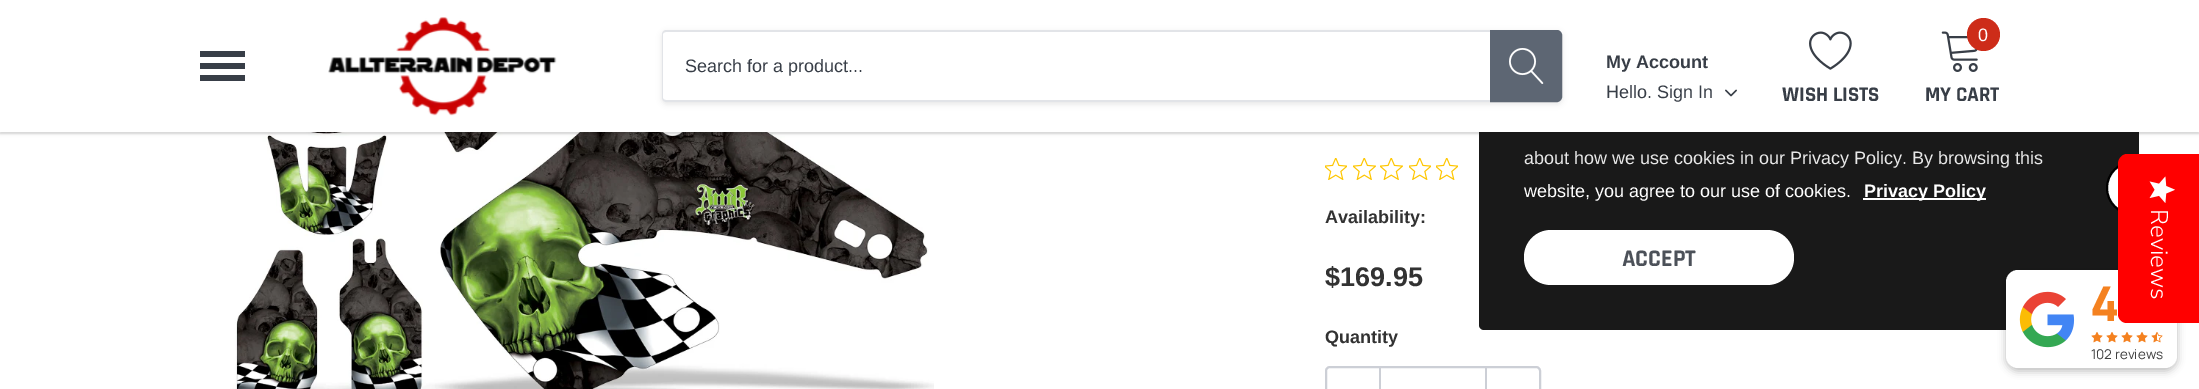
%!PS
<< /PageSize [2199 389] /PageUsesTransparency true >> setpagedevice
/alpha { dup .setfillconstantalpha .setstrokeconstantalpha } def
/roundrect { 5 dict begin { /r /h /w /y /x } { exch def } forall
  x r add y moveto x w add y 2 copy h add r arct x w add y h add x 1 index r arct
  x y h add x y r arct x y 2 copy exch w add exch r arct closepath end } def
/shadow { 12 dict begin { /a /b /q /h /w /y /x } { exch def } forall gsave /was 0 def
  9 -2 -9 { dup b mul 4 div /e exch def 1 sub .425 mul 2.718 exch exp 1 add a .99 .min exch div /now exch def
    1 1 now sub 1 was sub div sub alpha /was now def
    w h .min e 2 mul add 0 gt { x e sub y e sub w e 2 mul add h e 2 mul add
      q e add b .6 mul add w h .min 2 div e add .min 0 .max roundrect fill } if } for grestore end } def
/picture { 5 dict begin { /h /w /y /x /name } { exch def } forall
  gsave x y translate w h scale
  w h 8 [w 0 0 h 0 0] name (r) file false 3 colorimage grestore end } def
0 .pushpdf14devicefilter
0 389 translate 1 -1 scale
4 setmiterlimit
1 setgray
0 0 2199 389 rectfill
(img6.rgb) 230 132 704 257 picture
0.9 alpha
0 setgray
1479 63 660 267 5 roundrect fill
1 alpha
0 2 2199 132 0 1.5 0.1 shadow
0.06 alpha
2 setlinewidth
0 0 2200 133 rectstroke
1 alpha
1 setgray
0 0 2199 132 rectfill
0.22 0.243 0.278 setrgbcolor
200 63 45 6 rectfill
200 51 45 6 rectfill
200 75 45 6 rectfill
(img1.rgb) 328 17 229 99 picture
0 setgray
662 32 900 72 5 3 0.1 shadow
1 setgray
662 30 900 72 5 roundrect fill
0.886 0.894 0.91 setrgbcolor
newpath 666 30 moveto 1490 30 lineto 1490 102 lineto 666 102 lineto 664 102 662 100 662 98 curveto 662 34 lineto 662 32 664 30 666 30 curveto closepath 666 32 moveto 1490 32 lineto 1490 100 lineto 666 100 lineto 664 100 663 99 663 98 curveto 663 34 lineto 663 33 664 32 666 32 curveto closepath eofill
/Arimo-Regular [18 0 0 -18 0 0] selectfont
0.22 0.243 0.278 setrgbcolor
685 72 moveto (Search for a product...) show
0.365 0.4 0.451 setrgbcolor
newpath 1491 31 moveto 1557 31 lineto 1559 31 1561 33 1561 35 curveto 1561 97 lineto 1561 99 1559 101 1557 101 curveto 1491 101 lineto closepath gsave fill grestore
stroke
(img2.rgb) 1509 48 35 36 picture
/Arimo-Bold [18 0 0 -18 0 0] selectfont
0.22 0.243 0.278 setrgbcolor
1606 68 moveto (My Account) show
/Arimo-Regular [18 0 0 -18 0 0] selectfont
1606 98 moveto (Hello. Sign In) show
(img3.rgb) 1725 89 12 8 picture
(img4.rgb) 1941 31 37 41 picture
0.804 0.173 0.098 setrgbcolor
newpath 1983.5 34.5 16.5 0 360 arc closepath fill
1 setgray
1978 41 moveto (0) show
/Rajdhani-Bold [21 0 0 -21 0 0] selectfont
0.22 0.243 0.278 setrgbcolor
1925 101 moveto (MY CART) show
(img5.rgb) 1809 31 43 39 picture
1782 101 moveto (WISH LISTS) show
0 setgray
2106 162 54 54 27 2 0.1 shadow
1 setgray
newpath 2133 188 26 0 360 arc closepath gsave fill grestore
0 setgray
stroke
(img7.rgb) 1325 158 22 22 picture
(img8.rgb) 1353 158 23 22 picture
(img8.rgb) 1380 158 23 22 picture
(img7.rgb) 1409 158 22 22 picture
(img7.rgb) 1436 158 22 22 picture
/Arimo-Bold [18 0 0 -18 0 0] selectfont
0.196 setgray
1325 223 moveto (Availability:) show
/Arimo-Bold [27 0 0 -27 0 0] selectfont
1325 286 moveto ($169.95) show
/Arimo-Bold [18 0 0 -18 0 0] selectfont
1325 343 moveto (Quantity) show
0.8 0.812 0.839 setrgbcolor
1326 367 214 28 4 roundrect stroke
1379 368 2 21 rectfill
1485 368 2 21 rectfill
/Arimo-Regular [18 0 0 -18 0 0] selectfont
0.91 setgray
1524 164 moveto (about how we use cookies in our Privacy Policy. By browsing this) show
1 setgray
1524 197 moveto (website, you agree to our use of cookies.) show
1863 198 123 2 rectfill
/Arimo-Bold [18 0 0 -18 0 0] selectfont
1864 197 moveto (Privacy Policy) show
1524 230 270 55 27 roundrect fill
/Rajdhani-Bold [24 0 0 -24 0 0] selectfont
0.298 0.318 0.349 setrgbcolor
1622 266 moveto (ACCEPT) show
0 setgray
2006 273 171 98 12 4 0.26 shadow
1 setgray
2006 270 171 98 12 roundrect fill
1 0 0 setrgbcolor
newpath 2199 154 moveto 2199 323 lineto 2127 323 lineto 2122 323 2118 319 2118 314 curveto 2118 164 lineto 2118 159 2122 154 2127 154 curveto closepath fill
(img9.rgb) 2149 176 26 27 picture
/NunitoSans-Light [24 0 0 -24 0 0] selectfont
1 setgray
gsave 2151 209 translate 90 rotate 0 0 moveto (Reviews) show grestore
(img10.rgb) 2019 291 56 57 picture
/Manrope-ExtraBold [48 0 0 -48 0 0] selectfont
0.957 0.506 0.125 setrgbcolor
2090 321 moveto (4) show
(img11.rgb) 2091 332 12 11 picture
(img11.rgb) 2106 332 12 11 picture
(img11.rgb) 2121 332 12 11 picture
(img11.rgb) 2136 332 12 11 picture
(img12.rgb) 2151 332 12 11 picture
/Manrope-Regular [13.5 0 0 -13.5 0 0] selectfont
0.251 setgray
2091 359 moveto (102 reviews) show
.poppdf14devicefilter showpage
